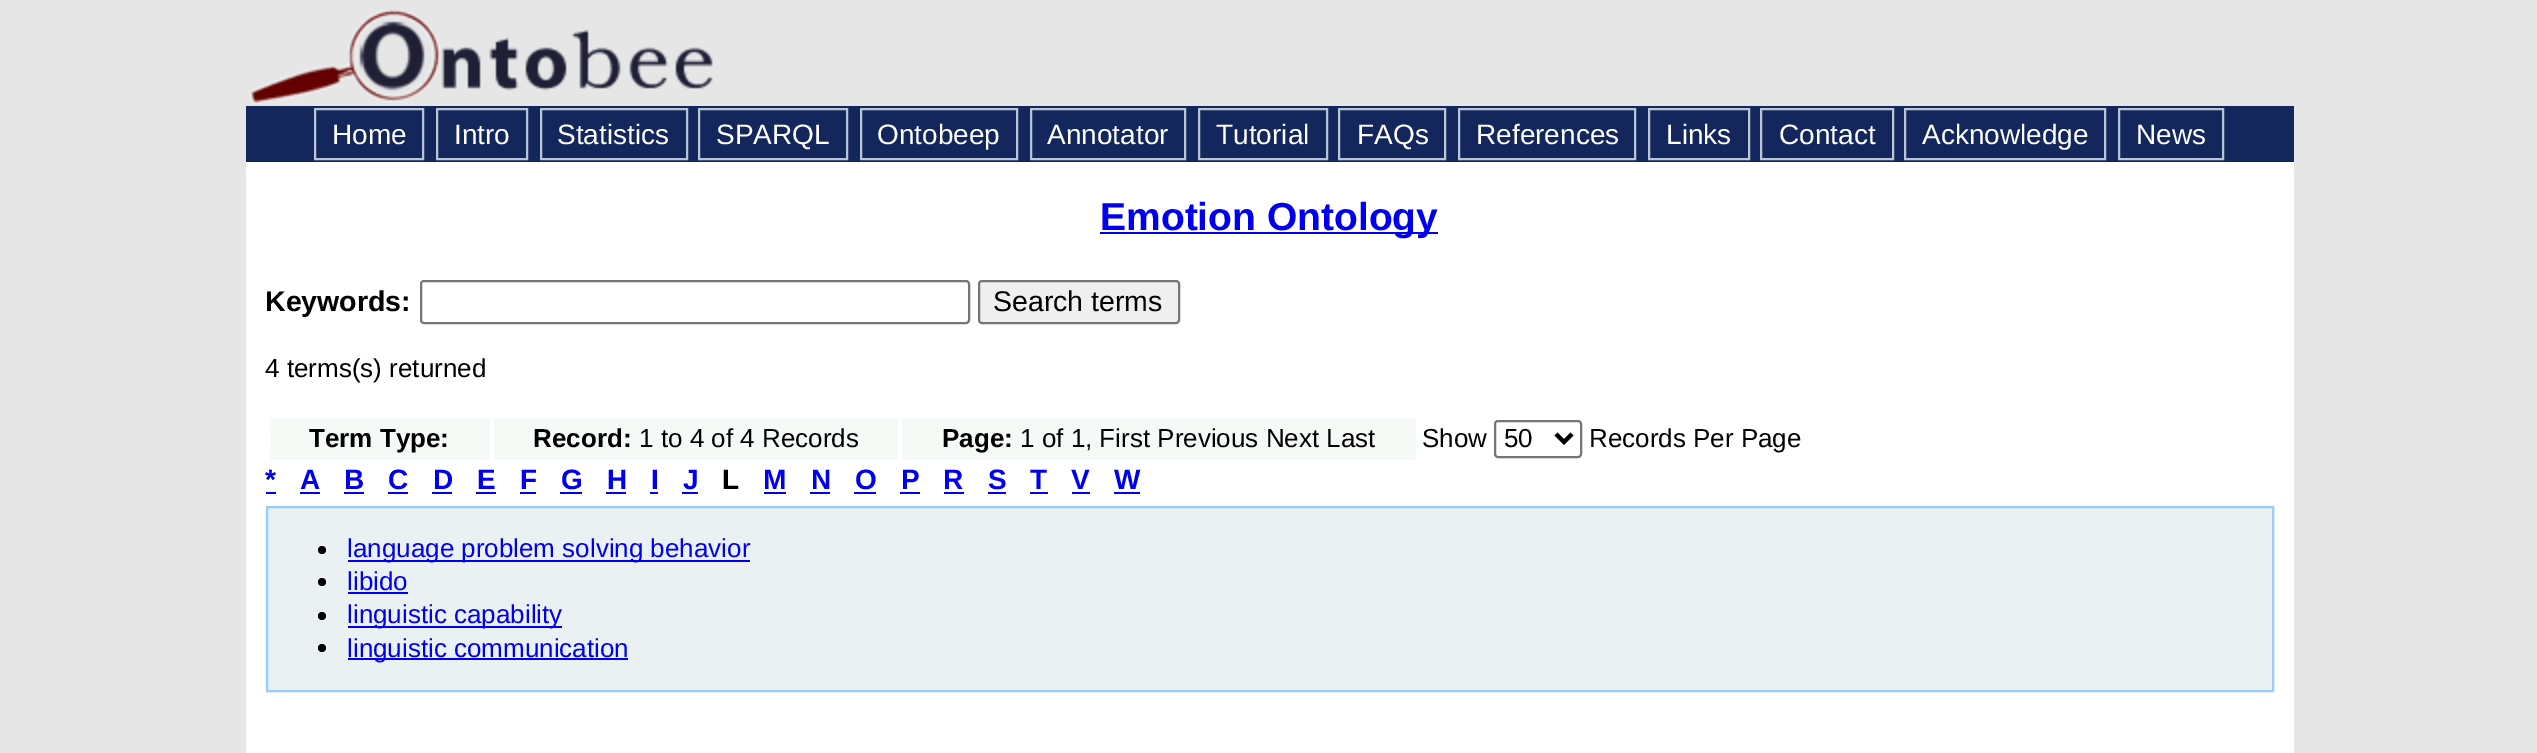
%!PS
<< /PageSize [2537 753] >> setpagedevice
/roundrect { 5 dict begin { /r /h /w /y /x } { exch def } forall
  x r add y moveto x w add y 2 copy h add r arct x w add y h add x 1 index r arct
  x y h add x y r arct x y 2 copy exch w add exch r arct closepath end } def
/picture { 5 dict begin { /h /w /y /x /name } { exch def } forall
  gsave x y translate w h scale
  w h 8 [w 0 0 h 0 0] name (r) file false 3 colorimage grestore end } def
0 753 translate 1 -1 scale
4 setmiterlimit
0.902 setgray
0 0 2537 753 rectfill
(img1.rgb) 250 9 463 95 picture
0.078 0.153 0.365 setrgbcolor
246 106 2048 56 rectfill
0.729 0.773 0.843 setrgbcolor
2 setlinewidth
315 109 108 50 rectstroke
/LiberationSans-Regular [28 0 0 -28 0 0] selectfont
1 setgray
332 144 moveto (Home) show
0.729 0.773 0.843 setrgbcolor
437 109 90 50 rectstroke
1 setgray
454 144 moveto (Intro) show
0.729 0.773 0.843 setrgbcolor
541 109 146 50 rectstroke
1 setgray
557 144 moveto (Statistics) show
0.729 0.773 0.843 setrgbcolor
699 109 148 50 rectstroke
1 setgray
716 144 moveto (SPARQL) show
0.729 0.773 0.843 setrgbcolor
861 109 156 50 rectstroke
1 setgray
877 144 moveto (Ontobeep) show
0.729 0.773 0.843 setrgbcolor
1031 109 154 50 rectstroke
1 setgray
1047 144 moveto (Annotator) show
0.729 0.773 0.843 setrgbcolor
1199 109 128 50 rectstroke
1 setgray
1216 144 moveto (Tutorial) show
0.729 0.773 0.843 setrgbcolor
1339 109 106 50 rectstroke
1 setgray
1357 144 moveto (FAQs) show
0.729 0.773 0.843 setrgbcolor
1459 109 176 50 rectstroke
1 setgray
1476 144 moveto (References) show
0.729 0.773 0.843 setrgbcolor
1649 109 100 50 rectstroke
1 setgray
1666 144 moveto (Links) show
0.729 0.773 0.843 setrgbcolor
1761 109 132 50 rectstroke
1 setgray
1779 144 moveto (Contact) show
0.729 0.773 0.843 setrgbcolor
1905 109 200 50 rectstroke
1 setgray
1922 144 moveto (Acknowledge) show
0.729 0.773 0.843 setrgbcolor
2119 109 104 50 rectstroke
1 setgray
2136 144 moveto (News) show
246 162 2048 591 rectfill
0 0 0.933 setrgbcolor
1100 232 338 2 rectfill
/LiberationSans-Bold [39 0 0 -39 0 0] selectfont
1100 230 moveto (Emotion Ontology) show
/LiberationSans-Bold [28.5 0 0 -28.5 0 0] selectfont
0 setgray
265 311 moveto (Keywords:) show
0.463 setgray
421 281 548 42 3 roundrect stroke
0.937 setgray
979 281 200 42 3 roundrect gsave fill grestore
0.463 setgray
stroke
/LiberationSans-Regular [28.5 0 0 -28.5 0 0] selectfont
0 setgray
993 311 moveto (Search terms) show
/LiberationSans-Regular [26 0 0 -26 0 0] selectfont
265 377 moveto (4 terms\(s\) returned) show
0.961 0.98 0.969 setrgbcolor
270 418 220 42 rectfill
/LiberationSans-Bold [26 0 0 -26 0 0] selectfont
0 setgray
309 447 moveto (Term Type:) show
0.961 0.98 0.969 setrgbcolor
494 418 404 42 rectfill
0 setgray
533 447 moveto (Record:) show
/LiberationSans-Regular [26 0 0 -26 0 0] selectfont
639 447 moveto (1 to 4 of 4 Records) show
0.961 0.98 0.969 setrgbcolor
902 418 514 42 rectfill
/LiberationSans-Bold [26 0 0 -26 0 0] selectfont
0 setgray
942 447 moveto (Page:) show
/LiberationSans-Regular [26 0 0 -26 0 0] selectfont
1020 447 moveto (1 of 1, First Previous Next Last) show
1422 447 moveto (Show) show
0.463 setgray
1495 421 86 36 3 roundrect stroke
0 setgray
4 setlinewidth
newpath 1556 434 moveto 1564 442 lineto 1572 434 lineto stroke
1504 447 moveto (50) show
1589 447 moveto (Records Per Page) show
/LiberationSans-Bold [28 0 0 -28 0 0] selectfont
0 0 0.933 setrgbcolor
265 489 moveto (*) show
266 492 10 2 rectfill
300 489 moveto (A) show
300 492 20 2 rectfill
344 489 moveto (B) show
344 492 20 2 rectfill
388 489 moveto (C) show
388 492 20 2 rectfill
433 489 moveto (D) show
432 492 20 2 rectfill
477 489 moveto (E) show
476 492 20 2 rectfill
520 489 moveto (F) show
520 492 16 2 rectfill
561 489 moveto (G) show
560 492 22 2 rectfill
607 489 moveto (H) show
606 492 20 2 rectfill
651 489 moveto (I) show
650 492 8 2 rectfill
683 489 moveto (J) show
682 492 16 2 rectfill
0 setgray
722 489 moveto (L) show
0 0 0.933 setrgbcolor
763 489 moveto (M) show
764 492 22 2 rectfill
811 489 moveto (N) show
810 492 20 2 rectfill
855 489 moveto (O) show
854 492 22 2 rectfill
901 489 moveto (P) show
900 492 20 2 rectfill
943 489 moveto (R) show
944 492 20 2 rectfill
988 489 moveto (S) show
988 492 18 2 rectfill
1030 489 moveto (T) show
1030 492 18 2 rectfill
1071 489 moveto (V) show
1072 492 18 2 rectfill
1114 489 moveto (W) show
1114 492 26 2 rectfill
0.918 0.945 0.949 setrgbcolor
newpath 267 507 moveto 2273 507 lineto 2273 691 lineto 267 691 lineto closepath gsave fill grestore
0.6 0.8 1 setrgbcolor
2 setlinewidth
stroke
0 setgray
newpath 322 550 4 0 360 arc closepath fill
0 0 0.933 setrgbcolor
348 560 402 2 rectfill
/LiberationSans-Regular [26 0 0 -26 0 0] selectfont
347 557 moveto (language problem solving behavior) show
0 setgray
newpath 322 582 4 0 360 arc closepath fill
0 0 0.933 setrgbcolor
347 590 moveto (libido) show
348 592 60 2 rectfill
0 setgray
newpath 322 616 4 0 360 arc closepath fill
0 0 0.933 setrgbcolor
348 626 214 2 rectfill
347 623 moveto (linguistic capability) show
0 setgray
newpath 322 648 4 0 360 arc closepath fill
0 0 0.933 setrgbcolor
348 658 280 2 rectfill
347 657 moveto (linguistic communication) show
showpage
